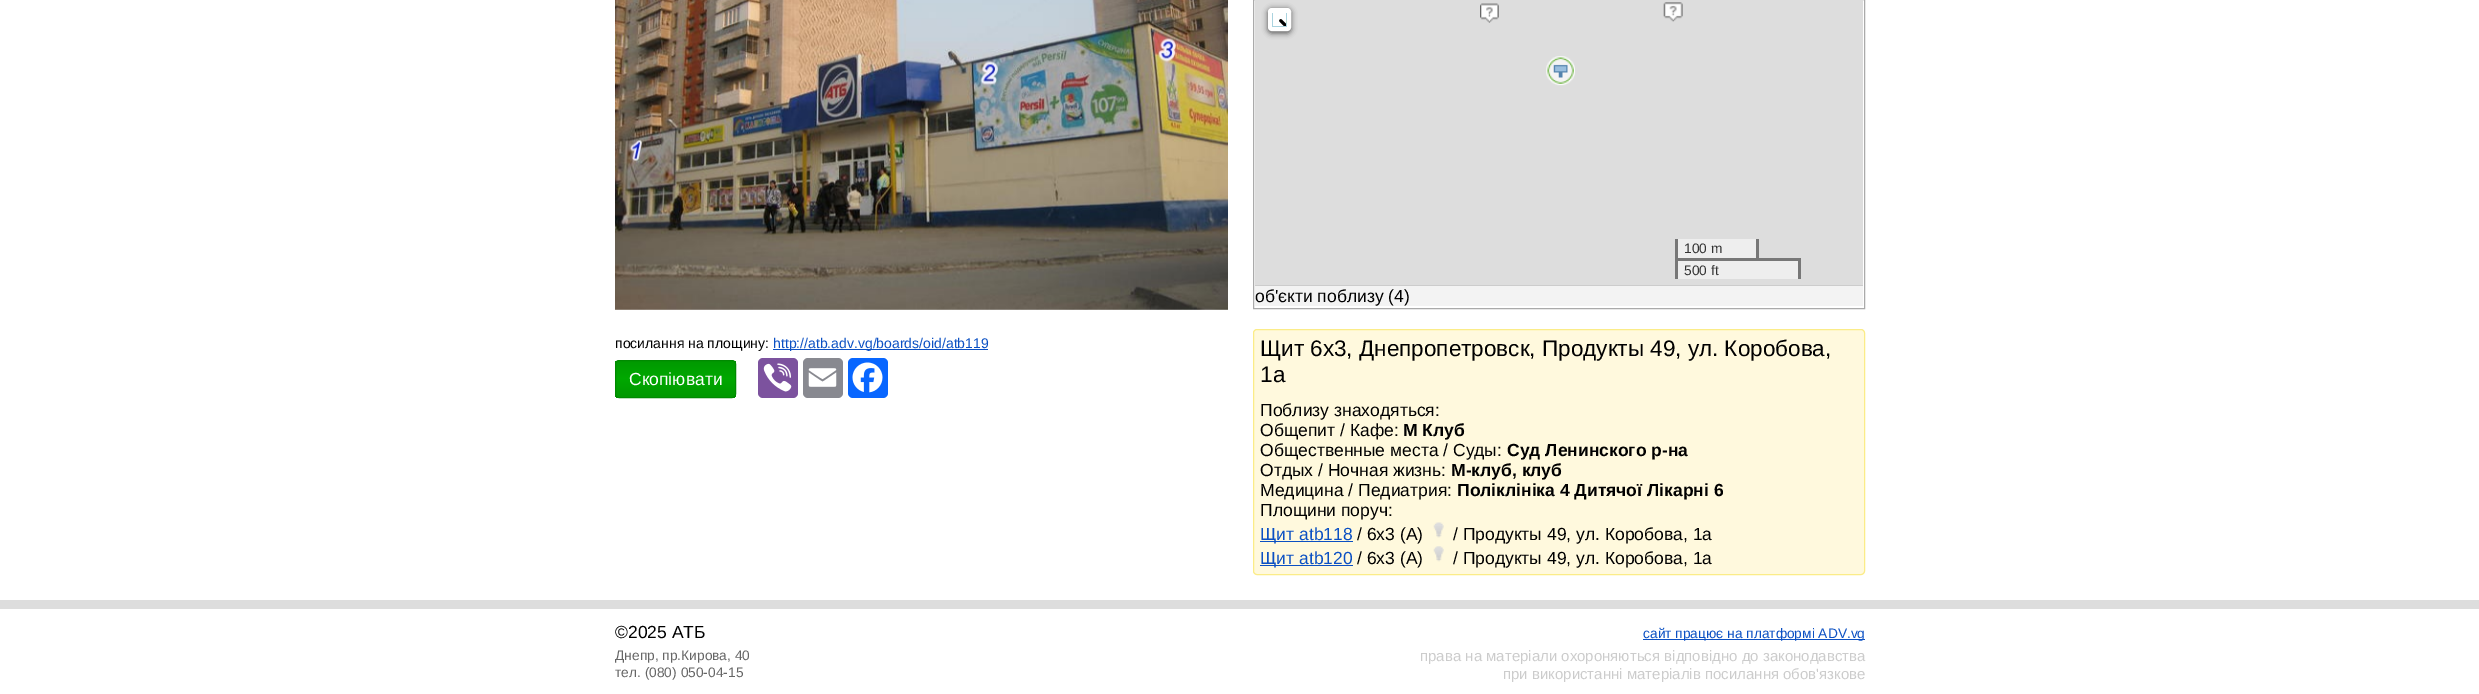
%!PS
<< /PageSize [2479 694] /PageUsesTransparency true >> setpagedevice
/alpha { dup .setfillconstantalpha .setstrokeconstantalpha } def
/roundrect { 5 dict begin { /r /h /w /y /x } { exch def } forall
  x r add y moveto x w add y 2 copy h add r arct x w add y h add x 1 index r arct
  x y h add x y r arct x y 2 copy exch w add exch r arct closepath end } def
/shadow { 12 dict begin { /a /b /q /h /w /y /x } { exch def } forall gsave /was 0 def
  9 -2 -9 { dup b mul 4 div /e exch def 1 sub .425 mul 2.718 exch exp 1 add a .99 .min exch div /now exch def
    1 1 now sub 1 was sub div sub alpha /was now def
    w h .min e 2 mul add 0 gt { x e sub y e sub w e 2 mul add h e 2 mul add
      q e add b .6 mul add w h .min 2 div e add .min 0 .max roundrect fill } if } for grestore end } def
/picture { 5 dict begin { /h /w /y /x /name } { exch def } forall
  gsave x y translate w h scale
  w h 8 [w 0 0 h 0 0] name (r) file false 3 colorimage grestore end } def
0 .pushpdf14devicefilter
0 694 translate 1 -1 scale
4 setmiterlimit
1 setgray
0 0 2479 694 rectfill
(img1.rgb) 615 0 613 310 picture
/LiberationSans-Regular [14 0 0 -14 0 0] selectfont
0 setgray
615 348 moveto (посилання на площину:) show
0.043 0.314 0.765 setrgbcolor
773 349 215 1 rectfill
773 348 moveto (http://atb.adv.vg/boards/oid/atb119) show
gsave
615 360 121 38 4 roundrect clip newpath
gsave newpath 615 361 moveto 736 361 lineto 736 396 lineto 615 396 lineto closepath clip newpath
<< /ShadingType 2 /ColorSpace /DeviceRGB /Coords [676 361 676 396] /Extend [true true] /Function << /FunctionType 3 /Domain [0 1] /Functions [<< /FunctionType 2 /Domain [0 1] /C0 [0 0.6 0] /C1 [0 0.659 0] /N 1 >> << /FunctionType 2 /Domain [0 1] /C0 [0 0.659 0] /C1 [0 0.6 0] /N 1 >>] /Bounds [0.5] /Encode [0 1 0 1] >> >> shfill grestore
gsave newpath 615 396 moveto 736 396 lineto 736 398 lineto 615 398 lineto closepath clip newpath
<< /ShadingType 2 /ColorSpace /DeviceRGB /Coords [676 396 676 431] /Extend [true true] /Function << /FunctionType 3 /Domain [0 1] /Functions [<< /FunctionType 2 /Domain [0 1] /C0 [0 0.6 0] /C1 [0 0.659 0] /N 1 >> << /FunctionType 2 /Domain [0 1] /C0 [0 0.659 0] /C1 [0 0.6 0] /N 1 >>] /Bounds [0.5] /Encode [0 1 0 1] >> >> shfill grestore
grestore
0 0.541 0 setrgbcolor
615.5 360.5 120 37 3.5 roundrect stroke
/LiberationSans-Regular [17.5 0 0 -17.5 0 0] selectfont
1 setgray
629 385 moveto (Скопіювати) show
0.486 0.322 0.62 setrgbcolor
758 358 40 40 5 roundrect fill
(img2.rgb) 763 363 29 29 picture
0.533 0.537 0.565 setrgbcolor
803 358 40 40 5 roundrect fill
(img3.rgb) 808 368 29 19 picture
0.031 0.4 1 setrgbcolor
848 358 40 40 5 roundrect fill
(img4.rgb) 852 362 31 31 picture
0.667 setgray
1253.5 -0.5 611 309 rectstroke
0.867 setgray
1255 0 608 285 rectfill
0.933 setgray
1678 261 120 18 rectfill
(img5.rgb) 1480 3 19 20 picture
(img6.rgb) 1663 2 20 20 picture
(img7.rgb) 1546 56 29 30 picture
(img8.rgb) 1553 64 15 14 picture
0 setgray
1268 9 23 24 4 3 0.65 shadow
1 setgray
5 setlinewidth
1270.5 10.5 18 18 1.5 roundrect stroke
(img9.rgb) 1272 13 15 14 picture
1273 13 13 13 rectfill
(img10.rgb) 1279 19 7 7 picture
0.933 setgray
1678 239 78 19 rectfill
0.467 setgray
1756 239 3 21 rectfill
1675 239 3 21 rectfill
/LiberationSans-Regular [13.75 0 0 -13.75 0 0] selectfont
0.2 setgray
1684 253 moveto (100 m) show
0.467 setgray
1675 258 125 3 rectfill
1798 258 3 21 rectfill
1675 258 3 21 rectfill
0.2 setgray
1684 275 moveto (500 ft) show
0.8 setgray
1255 285 608 1 rectfill
0.953 setgray
1255 286 608 20 rectfill
/LiberationSans-Regular [17.5 0 0 -17.5 0 0] selectfont
0 setgray
1255 302 moveto (об'єкти поблизу \(4\)) show
1 0.976 0.867 setrgbcolor
1253.5 329.5 611 245 3.5 roundrect gsave fill grestore
0.984 0.925 0.533 setrgbcolor
1 setlinewidth
stroke
/LiberationSans-Regular [22.5 0 0 -22.5 0 0] selectfont
0 setgray
1260 356 moveto (Щит 6x3, Днепропетровск, Продукты 49, ул. Коробова,) show
1260 382 moveto (1а) show
/LiberationSans-Regular [17.5 0 0 -17.5 0 0] selectfont
1260 416 moveto (Поблизу знаходяться:) show
1260 436 moveto (Общепит / Кафе:) show
/LiberationSans-Bold [17.5 0 0 -17.5 0 0] selectfont
1403 436 moveto (M Клуб) show
/LiberationSans-Regular [17.5 0 0 -17.5 0 0] selectfont
1260 456 moveto (Общественные места / Суды:) show
/LiberationSans-Bold [17.5 0 0 -17.5 0 0] selectfont
1507 456 moveto (Суд Ленинского р-на) show
/LiberationSans-Regular [17.5 0 0 -17.5 0 0] selectfont
1260 476 moveto (Отдых / Ночная жизнь:) show
/LiberationSans-Bold [17.5 0 0 -17.5 0 0] selectfont
1451 476 moveto (М-клуб, клуб) show
/LiberationSans-Regular [17.5 0 0 -17.5 0 0] selectfont
1260 496 moveto (Медицина / Педиатрия:) show
/LiberationSans-Bold [17.5 0 0 -17.5 0 0] selectfont
1457 496 moveto (Поліклініка 4 Дитячої Лікарні 6) show
/LiberationSans-Regular [17.5 0 0 -17.5 0 0] selectfont
1260 516 moveto (Площини поруч:) show
0.043 0.314 0.765 setrgbcolor
1260 541 93 1 rectfill
1260 540 moveto (Щит atb118) show
0 setgray
1357 540 moveto (/ 6x3 \(A\)) show
(img11.rgb) 1433 522 11 16 picture
1453 540 moveto (/ Продукты 49, ул. Коробова, 1а) show
0.043 0.314 0.765 setrgbcolor
1260 565 93 1 rectfill
1260 564 moveto (Щит atb120) show
0 setgray
1357 564 moveto (/ 6x3 \(A\)) show
(img12.rgb) 1433 546 11 16 picture
1453 564 moveto (/ Продукты 49, ул. Коробова, 1а) show
0.867 setgray
0 600 2479 9 rectfill
0 setgray
615 638 moveto (©2025 АТБ) show
/LiberationSans-Regular [13.75 0 0 -13.75 0 0] selectfont
0.4 setgray
615 660 moveto (Днепр, пр.Кирова, 40) show
615 677 moveto (тел. \(080\) 050-04-15) show
0.043 0.314 0.765 setrgbcolor
1643 639 222 1 rectfill
1643 638 moveto (сайт працює на платформі ADV.vg) show
/LiberationSans-Regular [15 0 0 -15 0 0] selectfont
0.8 setgray
1420 661 moveto (права на матеріали охороняються відповідно до законодавства) show
1503 679 moveto (при використанні матеріалів посилання обов'язкове) show
.poppdf14devicefilter showpage
